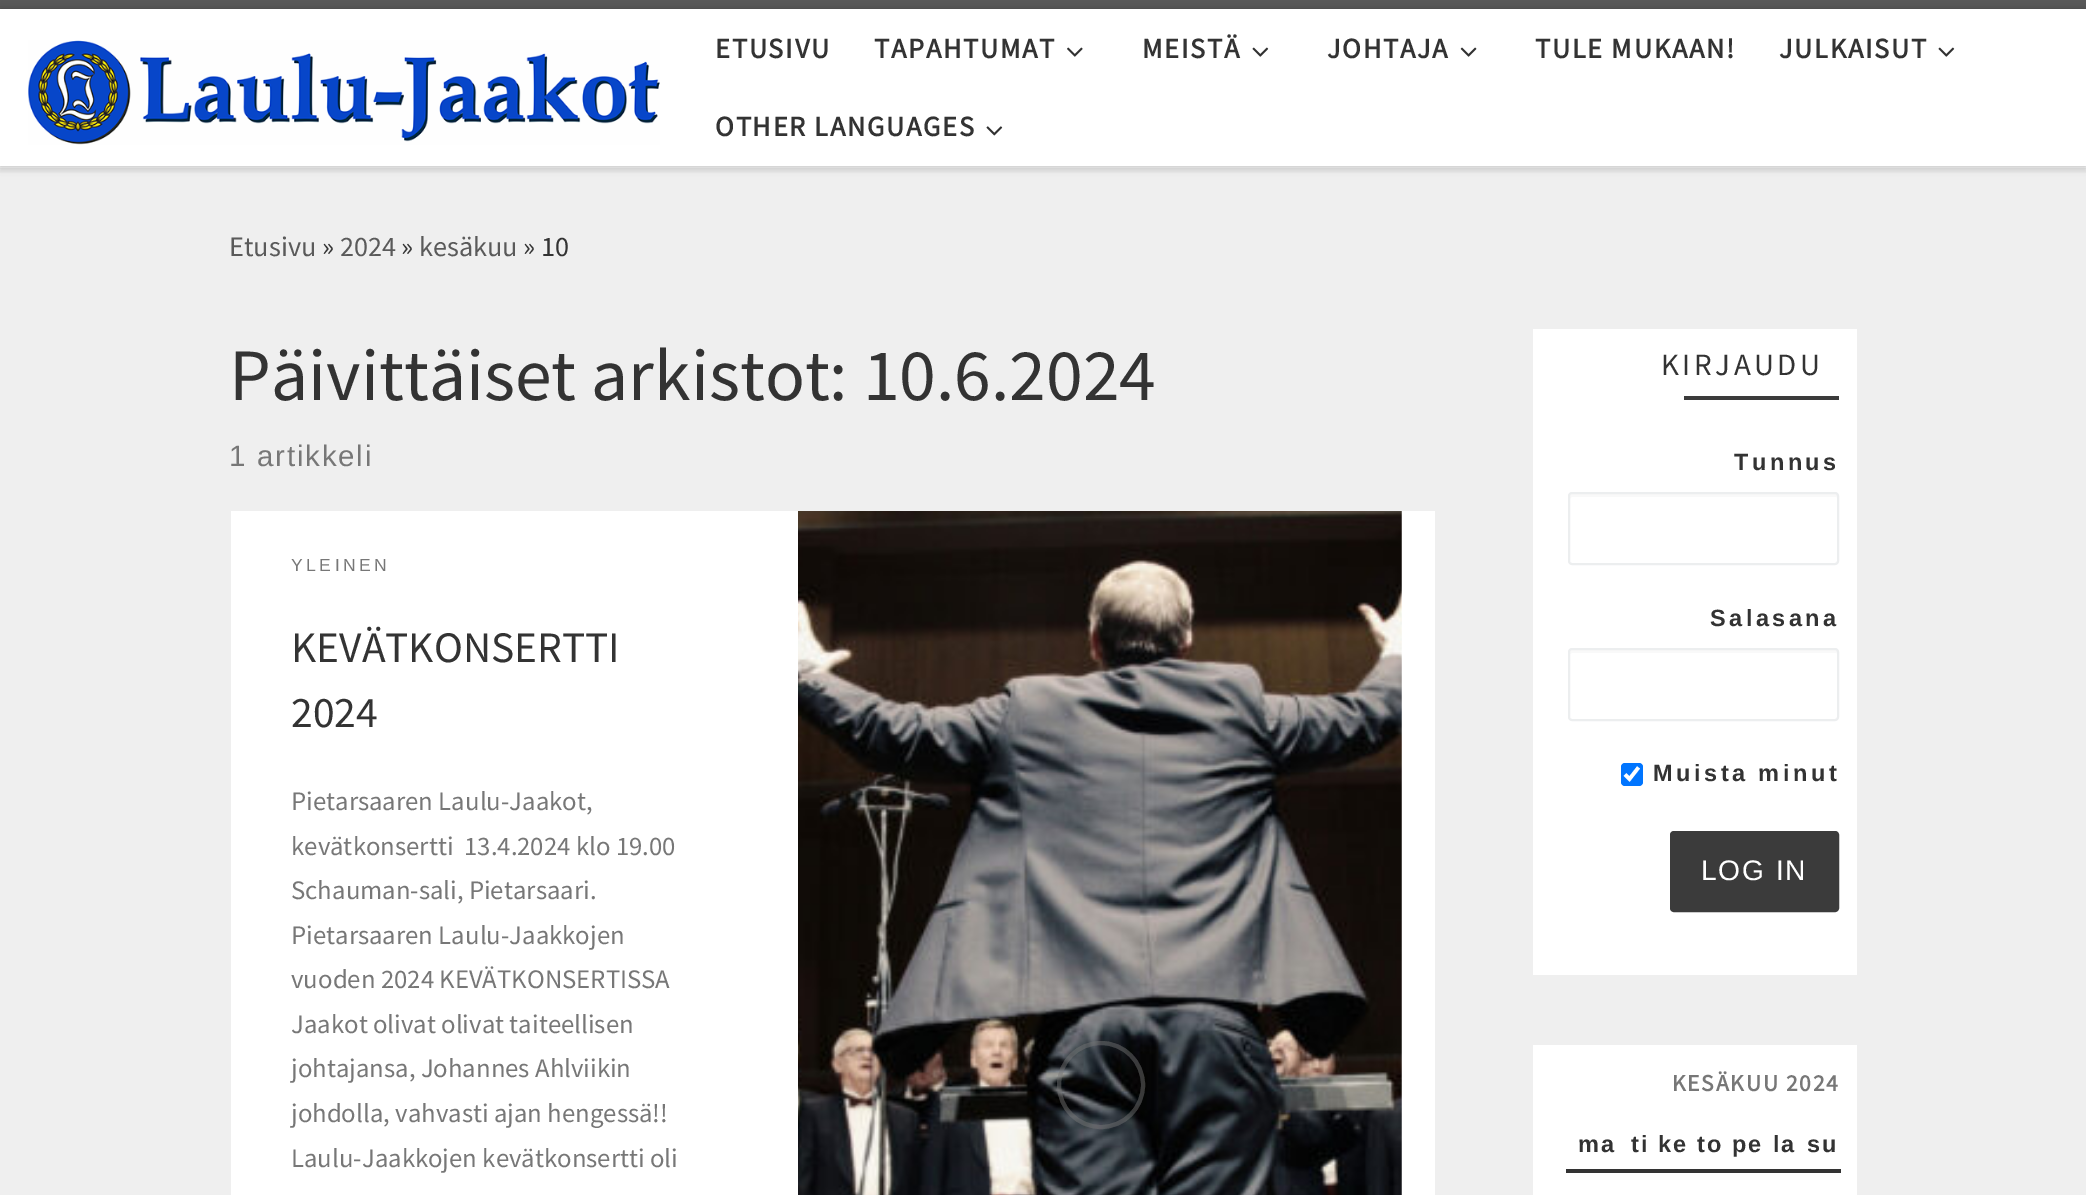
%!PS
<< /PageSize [2086 1195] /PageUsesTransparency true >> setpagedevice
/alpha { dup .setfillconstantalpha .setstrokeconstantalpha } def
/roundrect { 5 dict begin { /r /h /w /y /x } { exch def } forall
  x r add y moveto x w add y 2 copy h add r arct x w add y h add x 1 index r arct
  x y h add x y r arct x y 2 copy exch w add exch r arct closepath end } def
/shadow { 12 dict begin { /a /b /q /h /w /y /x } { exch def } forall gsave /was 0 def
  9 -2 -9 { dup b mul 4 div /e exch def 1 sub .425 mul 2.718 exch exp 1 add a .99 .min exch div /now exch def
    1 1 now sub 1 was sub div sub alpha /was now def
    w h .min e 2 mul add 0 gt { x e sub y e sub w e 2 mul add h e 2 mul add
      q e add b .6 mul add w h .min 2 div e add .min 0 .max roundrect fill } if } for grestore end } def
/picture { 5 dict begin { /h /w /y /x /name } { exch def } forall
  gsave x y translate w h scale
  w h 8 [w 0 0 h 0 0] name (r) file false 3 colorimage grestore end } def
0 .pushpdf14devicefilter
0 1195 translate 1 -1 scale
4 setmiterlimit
1 setgray
0 0 2086 1195 rectfill
0.937 setgray
0 168 2086 1027 rectfill
gsave
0 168 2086 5 rectclip
0.4 setgray
0 4 2086 168 0 2 0.08 shadow
grestore
0.353 setgray
0 0 2086 9 rectfill
0.937 setgray
0 166 2086 2 rectfill
gsave
newpath 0 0 moveto 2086 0 lineto 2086 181 lineto 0 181 lineto closepath 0 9 moveto 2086 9 lineto 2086 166 lineto 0 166 lineto closepath eoclip newpath
0 setgray
0 9 2086 157 0 4.5 0.2 shadow
grestore
(img1.rgb) 28 40 632 105 picture
/SourceSansPro-Bold [28.25 0 0 -28.25 0 0] selectfont
0.2 setgray
715 58 moveto 1.75 0 (ETUSIVU) ashow
874 58 moveto 1.75 0 (TAPAHTUMAT) ashow
(img2.rgb) 1067 47 16 10 picture
1142 58 moveto 1.75 0 (MEISTÄ) ashow
(img3.rgb) 1252 47 17 10 picture
1327 58 moveto 1.75 0 (JOHTAJA) ashow
(img4.rgb) 1460 47 17 10 picture
1535 58 moveto 1.75 0 (TULE MUKAAN!) ashow
1779 58 moveto 1.75 0 (JULKAISUT) ashow
(img3.rgb) 1938 47 17 10 picture
715 136 moveto 1.75 0 (OTHER LANGUAGES) ashow
(img5.rgb) 986 126 17 10 picture
/SourceSansPro-Regular [28.25 0 0 -28.25 0 0] selectfont
0.353 setgray
229 256 moveto (Etusivu) show
0.2 setgray
322 256 moveto (») show
0.353 setgray
340 256 moveto (2024) show
0.2 setgray
401 256 moveto (») show
0.353 setgray
419 256 moveto (kesäkuu) show
0.2 setgray
523 256 moveto (» 10) show
/SourceSansPro-Regular [73.8 0 0 -73.8 0 0] selectfont
229 400 moveto (Päivittäiset arkistot: 10.6.2024) show
/LiberationSans-Regular [29.5 0 0 -29.5 0 0] selectfont
0.467 setgray
229 466 moveto 1.75 0 (1 artikkeli) ashow
1 setgray
231 511 1204 684 rectfill
/LiberationSans-Regular [17.5 0 0 -17.5 0 0] selectfont
0.467 setgray
291 571 moveto 3.5 0 (YLEINEN) ashow
/SourceSansPro-Regular [43.5 0 0 -43.5 0 0] selectfont
0.2 setgray
291 662 moveto (KEVÄTKONSERTTI) show
291 727 moveto (2024) show
/SourceSansPro-Regular [26.75 0 0 -26.75 0 0] selectfont
0.467 setgray
291 810 moveto (Pietarsaaren Laulu-Jaakot,) show
291 855 moveto (kevätkonsertti  13.4.2024 klo 19.00) show
291 899 moveto (Schauman-sali, Pietarsaari.) show
291 944 moveto (Pietarsaaren Laulu-Jaakkojen) show
291 988 moveto (vuoden 2024 KEVÄTKONSERTISSA) show
291 1033 moveto (Jaakot olivat olivat taiteellisen) show
291 1077 moveto (johtajansa, Johannes Ahlviikin) show
291 1122 moveto (johdolla, vahvasti ajan hengessä!!) show
291 1167 moveto (Laulu-Jaakkojen kevätkonsertti oli) show
(img6.rgb) 798 511 604 684 picture
0.19 alpha
4 setlinewidth
newpath 1101 1085 42 0 360 arc closepath stroke
newpath 1101 1085 42 0 360 arc closepath stroke
newpath 1101 1085 42 0 360 arc closepath stroke
1 alpha
1 setgray
1533 329 324 646 rectfill
/SourceSansPro-Regular [31 0 0 -31 0 0] selectfont
0.2 setgray
1661 375 moveto 3.5 0 (KIRJAUDU) ashow
0.231 setgray
1684 396 155 4 rectfill
/LiberationSans-Bold [23.5 0 0 -23.5 0 0] selectfont
0.2 setgray
1734 470 moveto 3.5 0 (Tunnus) ashow
0.976 setgray
newpath 1572 497 moveto 1836 497 lineto 1837 497 1838 498 1838 499 curveto 1838 497 1839 494 1836 494 curveto 1572 494 lineto 1569 494 1570 497 1570 499 curveto 1570 498 1571 497 1572 497 curveto closepath fill
0.925 0.933 0.937 setrgbcolor
2 setlinewidth
1569 493 269 71 3 roundrect stroke
0.2 setgray
1710 626 moveto 3.5 0 (Salasana) ashow
0.976 setgray
newpath 1572 653 moveto 1836 653 lineto 1838 654 lineto 1838 652 1839 649 1836 649 curveto 1572 649 lineto 1569 649 1570 652 1570 654 curveto closepath fill
0.925 0.933 0.937 setrgbcolor
1569 649 269 71 3 roundrect stroke
0 0.459 1 setrgbcolor
1621 763 22 23 4 roundrect fill
1 setgray
3.6 setlinewidth
newpath 1625 774.5 moveto 1629.5 779 lineto 1638.5 767.5 lineto stroke
0.2 setgray
1653 781 moveto 3.5 0 (Muista minut) ashow
0.231 setgray
1672 833 165 77 2 roundrect gsave fill grestore
4 setlinewidth
stroke
/LiberationSans-Regular [28.25 0 0 -28.25 0 0] selectfont
1 setgray
1701 880 moveto 1.75 0 (LOG IN) ashow
1533 1045 324 150 rectfill
/SourceSansPro-Bold [23.5 0 0 -23.5 0 0] selectfont
0.467 setgray
1672 1091 moveto 1.75 0 (KESÄKUU 2024) ashow
0.2 setgray
1566 1169 275 4 rectfill
/LiberationSans-Bold [23.5 0 0 -23.5 0 0] selectfont
1578 1152 moveto 1.75 0 (ma) ashow
1631 1152 moveto 1.75 0 (ti) ashow
1658 1152 moveto 1.75 0 (ke) ashow
1697 1152 moveto 1.75 0 (to) ashow
1732 1152 moveto 1.75 0 (pe) ashow
1773 1152 moveto 1.75 0 (la) ashow
1807 1152 moveto 1.75 0 (su) ashow
.poppdf14devicefilter showpage
